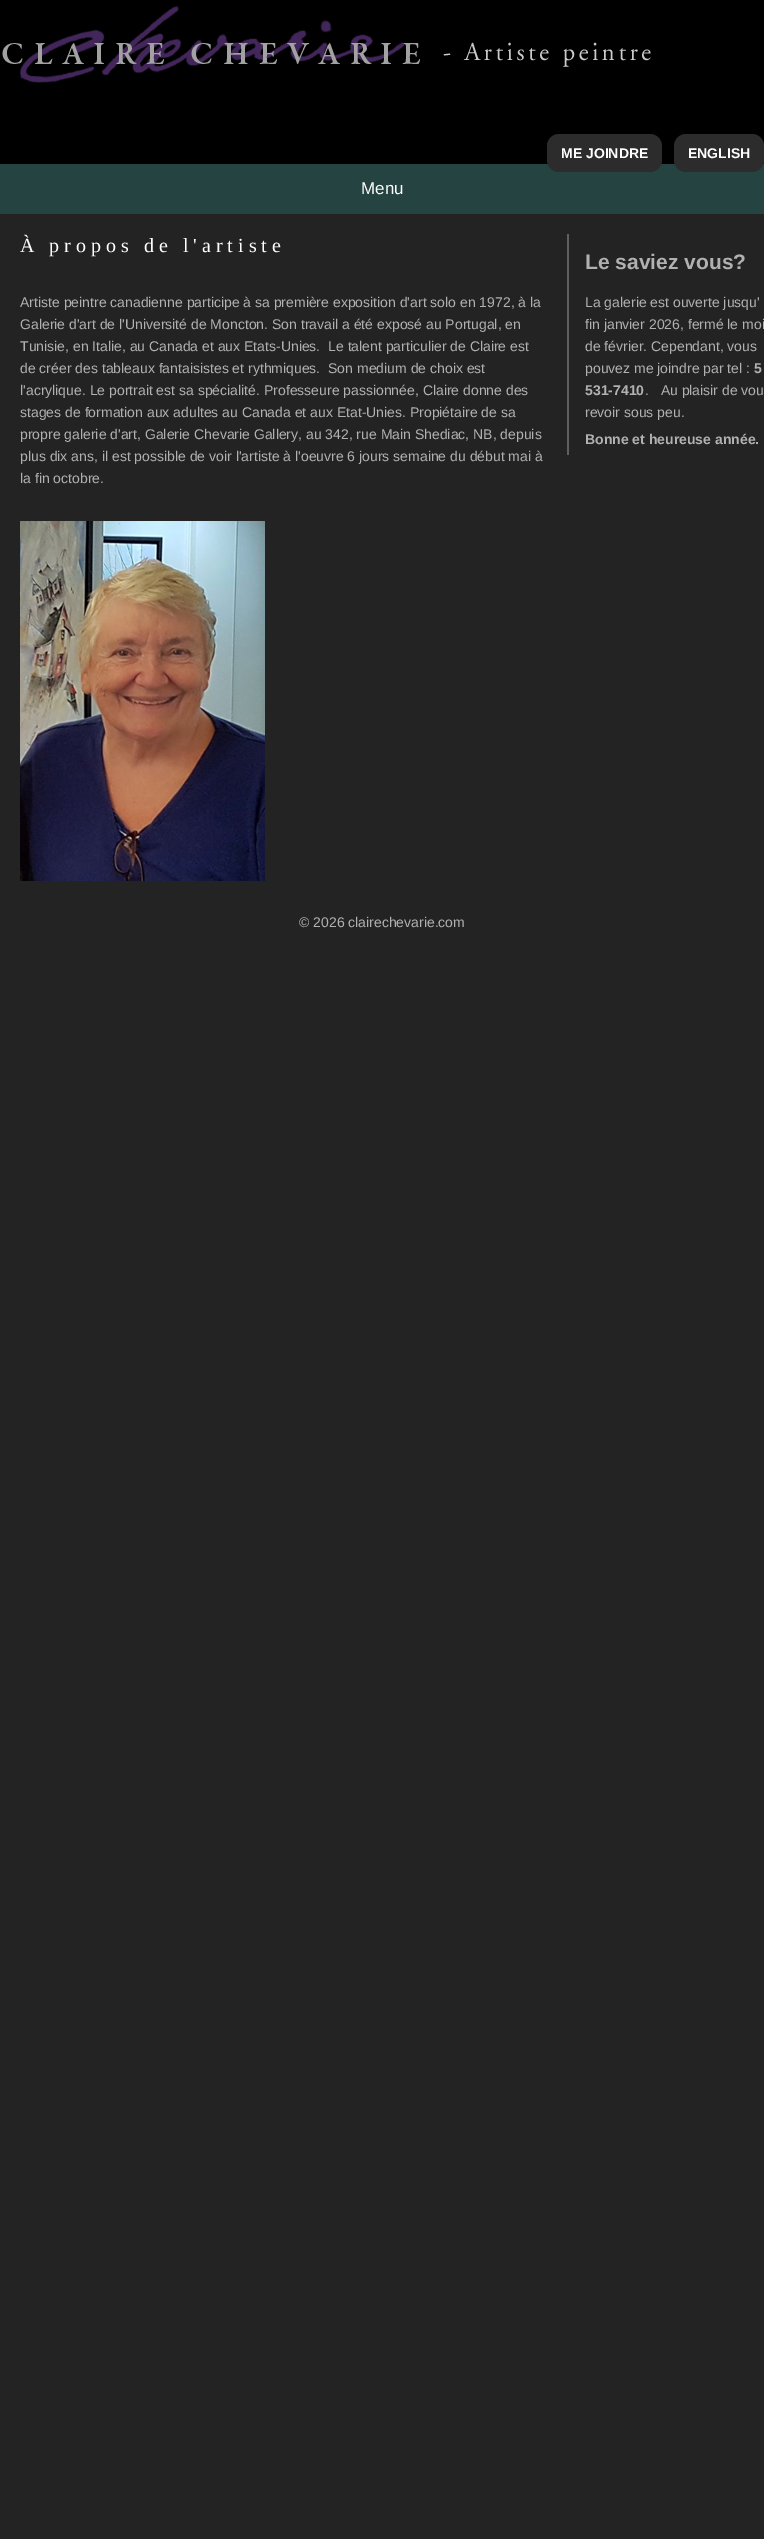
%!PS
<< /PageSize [764 2539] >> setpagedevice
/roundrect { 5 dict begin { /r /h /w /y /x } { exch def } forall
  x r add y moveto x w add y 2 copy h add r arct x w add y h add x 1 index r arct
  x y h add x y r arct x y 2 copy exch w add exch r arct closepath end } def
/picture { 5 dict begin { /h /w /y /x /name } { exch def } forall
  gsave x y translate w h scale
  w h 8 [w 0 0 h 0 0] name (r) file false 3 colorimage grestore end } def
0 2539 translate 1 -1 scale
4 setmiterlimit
0.141 0.137 0.137 setrgbcolor
0 0 764 2539 rectfill
0 setgray
0 0 764 164 rectfill
(img1.rgb) 2 6 649 77 picture
0.145 0.267 0.255 setrgbcolor
0 164 764 50 rectfill
0.173 setgray
547 134 115 38 12 roundrect fill
/LiberationSans-Bold [14 0 0 -14 0 0] selectfont
1 setgray
561 158 moveto (ME JOINDRE) show
0.173 setgray
674 134 90 38 12 roundrect fill
1 setgray
688 158 moveto (ENGLISH) show
/LiberationSans-Regular [17 0 0 -17 0 0] selectfont
361 194 moveto (Menu) show
/LiberationSerif-Regular [20 0 0 -20 0 0] selectfont
20 252 moveto 5 0 (À propos de l'artiste) ashow
/LiberationSans-Regular [14 0 0 -14 0 0] selectfont
0.694 setgray
20 307 moveto (Artiste peintre canadienne participe à sa première exposition d'art solo en 1972, à la) show
20 329 moveto (Galerie d'art de l'Université de Moncton. Son travail a été exposé au Portugal, en) show
20 351 moveto (Tunisie, en Italie, au Canada et aux Etats-Unies.  Le talent particulier de Claire est) show
20 373 moveto (de créer des tableaux fantaisistes et rythmiques.  Son medium de choix est) show
20 395 moveto (l'acrylique. Le portrait est sa spécialité. Professeure passionnée, Claire donne des) show
20 417 moveto (stages de formation aux adultes au Canada et aux Etat-Unies. Propiétaire de sa) show
20 439 moveto (propre galerie d'art, Galerie Chevarie Gallery, au 342, rue Main Shediac, NB, depuis) show
20 461 moveto (plus dix ans, il est possible de voir l'artiste à l'oeuvre 6 jours semaine du début mai à) show
20 483 moveto (la fin octobre.) show
(img2.rgb) 20 521 245 360 picture
0.373 setgray
567 234 2 221 rectfill
/LiberationSans-Bold [21 0 0 -21 0 0] selectfont
0.694 setgray
585 269 moveto (Le saviez vous?) show
/LiberationSans-Regular [14 0 0 -14 0 0] selectfont
585 307 moveto (La galerie est ouverte jusqu') show
585 329 moveto (fin janvier 2026, fermé le moi) show
585 351 moveto (de février. Cependant, vous) show
585 373 moveto (pouvez me joindre par tel :) show
/LiberationSans-Bold [14 0 0 -14 0 0] selectfont
754 373 moveto (5) show
585 395 moveto (531-7410) show
/LiberationSans-Regular [14 0 0 -14 0 0] selectfont
645 395 moveto (.   Au plaisir de vou) show
585 417 moveto (revoir sous peu.) show
/LiberationSans-Bold [14 0 0 -14 0 0] selectfont
585 444 moveto (Bonne et heureuse année.) show
/LiberationSans-Regular [14 0 0 -14 0 0] selectfont
299 927 moveto (© 2026 clairechevarie.com) show
showpage
